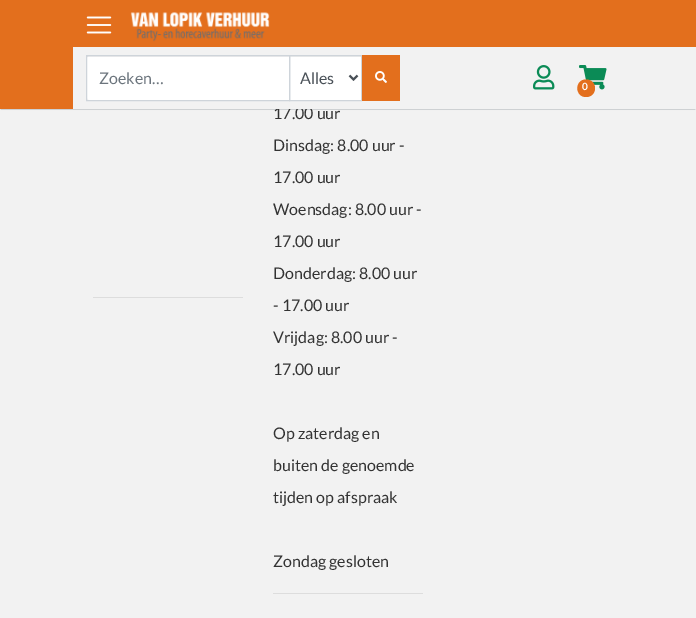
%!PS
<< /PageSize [696 618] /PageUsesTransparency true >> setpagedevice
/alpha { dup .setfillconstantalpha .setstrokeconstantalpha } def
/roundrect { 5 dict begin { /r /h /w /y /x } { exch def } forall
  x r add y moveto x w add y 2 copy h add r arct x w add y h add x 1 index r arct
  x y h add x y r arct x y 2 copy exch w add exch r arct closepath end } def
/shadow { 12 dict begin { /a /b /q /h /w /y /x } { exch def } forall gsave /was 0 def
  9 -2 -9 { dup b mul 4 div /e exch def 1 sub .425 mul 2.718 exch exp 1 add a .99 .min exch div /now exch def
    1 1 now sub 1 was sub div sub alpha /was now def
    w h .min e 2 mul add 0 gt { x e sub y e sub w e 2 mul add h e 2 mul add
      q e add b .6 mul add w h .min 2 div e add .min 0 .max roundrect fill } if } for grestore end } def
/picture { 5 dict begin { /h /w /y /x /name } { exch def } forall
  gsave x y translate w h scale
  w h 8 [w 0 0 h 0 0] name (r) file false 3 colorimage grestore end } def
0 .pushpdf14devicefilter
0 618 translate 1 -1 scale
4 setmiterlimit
0.949 setgray
0 0 696 618 rectfill
0.424 0.459 0.49 setrgbcolor
1 2 694 107 0 0.5 1 shadow
/Lato-Regular [16 0 0 -16 0 0] selectfont
0.2 setgray
273 119 moveto (17.00 uur) show
0.89 0.435 0.114 setrgbcolor
0 0 696 109 rectfill
(img1.rgb) 86 16 26 18 picture
(img2.rgb) 130 12 140 30 picture
0.949 setgray
73 47 623 62 rectfill
1 setgray
newpath 90 56 moveto 289 56 lineto 289 100 lineto 90 100 lineto 88.5 100 87 98.5 87 97 curveto 87 59 lineto 87 57.5 88.5 56 90 56 curveto closepath fill
0.07 alpha
0 setgray
87 56 202 1 rectfill
1 alpha
1 setgray
290 57 71 43 rectfill
0.925 setgray
290 56 71 1 rectfill
0.808 0.831 0.855 setrgbcolor
289.5 55.5 72 45 rectstroke
86.5 55.5 203 45 rectstroke
0.424 0.459 0.49 setrgbcolor
99 84 moveto (Zoeken…) show
0.286 0.314 0.341 setrgbcolor
2 setlinewidth
newpath 349.5 75.5 moveto 353.5 79.5 lineto 357.5 75.5 lineto stroke
300 84 moveto (Alles) show
0.89 0.435 0.114 setrgbcolor
362 55 38 46 rectfill
(img3.rgb) 375 71 12 12 picture
(img4.rgb) 533 65 22 25 picture
(img5.rgb) 579 65 28 25 picture
newpath 586 79.5 moveto 574.5 79.5 574.5 97 586 97 curveto 598 97 598 79.5 586 79.5 curveto closepath fill
/Lato-Bold [10 0 0 -10 0 0] selectfont
1 setgray
582 90 moveto (0) show
0.867 setgray
93 297 150 1 rectfill
273 593 150 1 rectfill
/Lato-Regular [16 0 0 -16 0 0] selectfont
0.2 setgray
273 151 moveto (Dinsdag: 8.00 uur -) show
273 183 moveto (17.00 uur) show
273 215 moveto (Woensdag: 8.00 uur -) show
273 247 moveto (17.00 uur) show
273 279 moveto (Donderdag: 8.00 uur) show
273 311 moveto (- 17.00 uur) show
273 343 moveto (Vrijdag: 8.00 uur -) show
273 375 moveto (17.00 uur) show
273 439 moveto (Op zaterdag en) show
273 471 moveto (buiten de genoemde) show
273 503 moveto (tijden op afspraak) show
273 567 moveto (Zondag gesloten) show
.poppdf14devicefilter showpage
